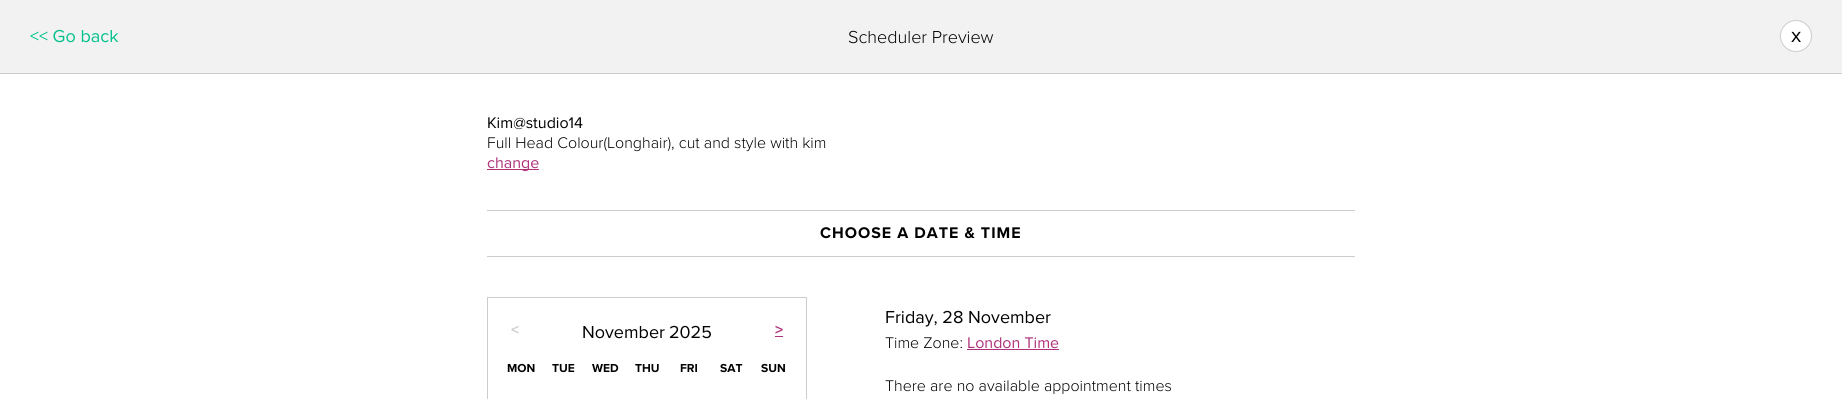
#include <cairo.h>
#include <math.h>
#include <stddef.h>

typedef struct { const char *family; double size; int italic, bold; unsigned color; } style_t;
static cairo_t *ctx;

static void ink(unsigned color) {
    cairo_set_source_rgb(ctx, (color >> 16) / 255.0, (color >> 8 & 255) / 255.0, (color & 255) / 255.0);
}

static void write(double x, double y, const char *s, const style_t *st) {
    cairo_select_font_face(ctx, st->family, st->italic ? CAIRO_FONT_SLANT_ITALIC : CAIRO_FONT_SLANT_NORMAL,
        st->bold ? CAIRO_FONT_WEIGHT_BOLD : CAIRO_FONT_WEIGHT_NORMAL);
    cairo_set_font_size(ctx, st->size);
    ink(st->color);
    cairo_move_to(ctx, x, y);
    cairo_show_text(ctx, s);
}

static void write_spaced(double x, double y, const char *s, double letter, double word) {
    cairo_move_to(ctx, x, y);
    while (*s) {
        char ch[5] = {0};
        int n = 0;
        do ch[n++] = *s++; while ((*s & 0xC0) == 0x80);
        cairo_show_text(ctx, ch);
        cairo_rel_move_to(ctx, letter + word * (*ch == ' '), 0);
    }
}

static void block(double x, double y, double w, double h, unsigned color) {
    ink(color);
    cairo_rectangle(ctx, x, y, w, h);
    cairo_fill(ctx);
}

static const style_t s1 = {"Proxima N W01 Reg", 18, 0, 0, 0x00c18c};
static const style_t s2 = {"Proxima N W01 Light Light", 18, 0, 0, 0x000000};
static const style_t s3 = {"Proxima N W01 Reg", 21, 0, 0, 0x000000};
static const style_t s4 = {"Proxima N W01 Reg", 16, 0, 0, 0x000000};
static const style_t s5 = {"Proxima N W01 Light Light", 16, 0, 0, 0x000000};
static const style_t s6 = {"Proxima N W01 Reg", 16, 0, 0, 0xae3279};
static const style_t s7 = {"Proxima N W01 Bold", 16, 0, 1, 0xcccccc};
static const style_t s8 = {"Proxima N W01 Reg", 18, 0, 0, 0x000000};
static const style_t s9 = {"Proxima N W01 Bold", 16, 0, 1, 0xae3279};
static const style_t s10 = {"Proxima N W01 Bold", 12, 0, 1, 0x000000};

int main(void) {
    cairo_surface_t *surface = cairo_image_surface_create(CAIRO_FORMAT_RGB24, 1842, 399);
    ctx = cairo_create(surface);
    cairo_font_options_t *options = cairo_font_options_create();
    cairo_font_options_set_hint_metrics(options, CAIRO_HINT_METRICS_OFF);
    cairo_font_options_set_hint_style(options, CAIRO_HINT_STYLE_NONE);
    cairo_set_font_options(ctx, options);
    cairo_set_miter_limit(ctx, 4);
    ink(0xffffff);
    cairo_paint(ctx);
    block(0, 0, 1842, 73, 0xf2f2f2);
    block(0, 73, 1842, 1, 0xcccccc);
    write(30, 42, "<< Go back", &s1);
    write(848, 43, "Scheduler Preview", &s2);
    ink(0xffffff);
    cairo_new_path(ctx);
    cairo_arc(ctx, 1796, 36, 15.5, 0, 2 * M_PI);
    cairo_fill_preserve(ctx);
    ink(0xcccccc);
    cairo_set_line_width(ctx, 1);
    cairo_stroke(ctx);
    write(1791, 42, "x", &s3);
    write(487, 128, "Kim@studio14", &s4);
    write(487, 148, "Full Head Colour(Longhair), cut and style with kim", &s5);
    block(487, 169, 52, 1, 0xae3279);
    write(487, 168, "change", &s6);
    block(487, 210, 868, 1, 0xcccccc);
    block(487, 256, 868, 1, 0xcccccc);
    cairo_select_font_face(ctx, "Proxima N W01 Bold", CAIRO_FONT_SLANT_NORMAL, CAIRO_FONT_WEIGHT_BOLD);
    ink(0x000000);
    write_spaced(820, 238, "CHOOSE A DATE & TIME", 1, 0);
    cairo_rectangle(ctx, 487.5, 297.5, 319, 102);
    ink(0xcccccc);
    cairo_stroke(ctx);
    write(511, 335, "<", &s7);
    write(582, 338, "November", &s8);
    write(669, 338, "2025", &s8);
    write(775, 335, ">", &s9);
    block(775, 336, 8, 1, 0xae3279);
    write(507, 372, "MON", &s10);
    write(552, 372, "TUE", &s10);
    write(592, 372, "WED", &s10);
    write(635, 372, "THU", &s10);
    write(680, 372, "FRI", &s10);
    write(720, 372, "SAT", &s10);
    write(761, 372, "SUN", &s10);
    write(885, 323, "Friday, 28 November", &s8);
    write(885, 348, "Time Zone:", &s5);
    write(967, 348, "London Time", &s6);
    block(967, 349, 92, 1, 0xae3279);
    write(885, 391, "There are no available appointment times", &s5);
    cairo_surface_write_to_png(surface, "screenshot.png");
    cairo_font_options_destroy(options);
    cairo_destroy(ctx);
    cairo_surface_destroy(surface);
    return 0;
}
